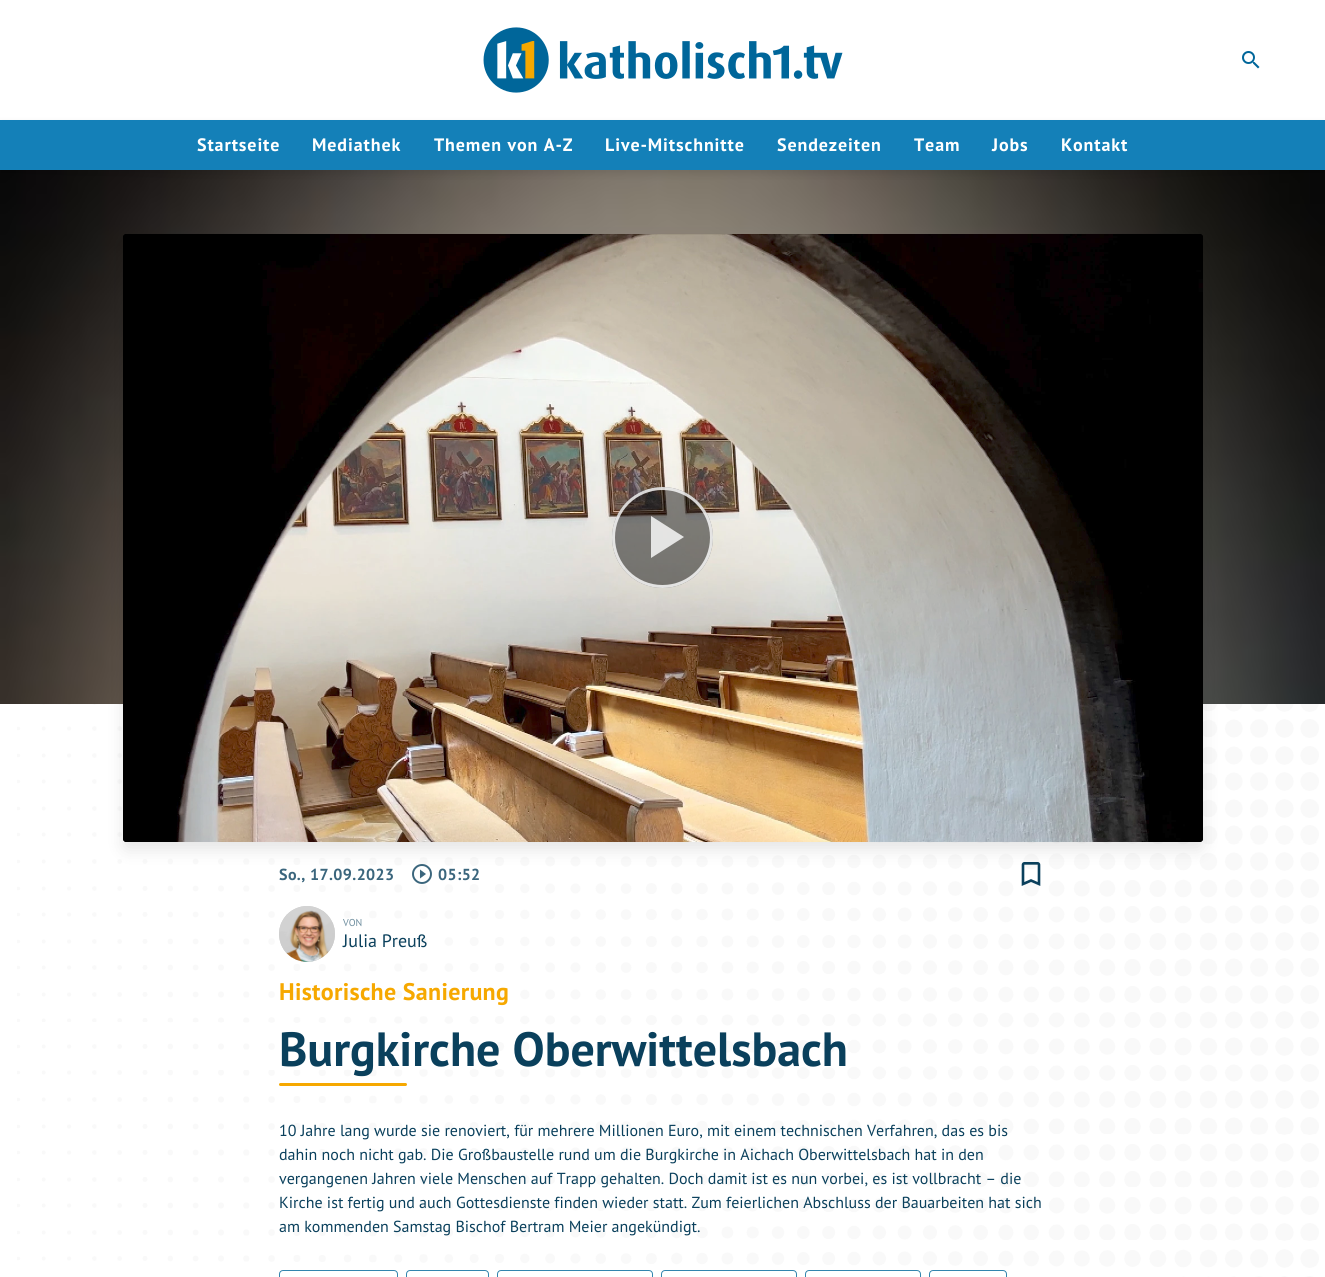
#include <cairo.h>
#include <math.h>
#include <stddef.h>

typedef struct { const char *family; double size; int italic, bold; unsigned color; } style_t;
static cairo_t *ctx;

static void ink(unsigned color) {
    cairo_set_source_rgb(ctx, (color >> 16) / 255.0, (color >> 8 & 255) / 255.0, (color & 255) / 255.0);
}

static void write(double x, double y, const char *s, const style_t *st) {
    cairo_select_font_face(ctx, st->family, st->italic ? CAIRO_FONT_SLANT_ITALIC : CAIRO_FONT_SLANT_NORMAL,
        st->bold ? CAIRO_FONT_WEIGHT_BOLD : CAIRO_FONT_WEIGHT_NORMAL);
    cairo_set_font_size(ctx, st->size);
    ink(st->color);
    cairo_move_to(ctx, x, y);
    cairo_show_text(ctx, s);
}

static void write_spaced(double x, double y, const char *s, double letter, double word) {
    cairo_move_to(ctx, x, y);
    while (*s) {
        char ch[5] = {0};
        int n = 0;
        do ch[n++] = *s++; while ((*s & 0xC0) == 0x80);
        cairo_show_text(ctx, ch);
        cairo_rel_move_to(ctx, letter + word * (*ch == ' '), 0);
    }
}

static void block(double x, double y, double w, double h, unsigned color) {
    ink(color);
    cairo_rectangle(ctx, x, y, w, h);
    cairo_fill(ctx);
}

static void round_path(double x, double y, double w, double h, double r) {
    cairo_new_sub_path(ctx);
    cairo_arc(ctx, x + w - r, y + h - r, r, 0, M_PI / 2);
    cairo_arc(ctx, x + r, y + h - r, r, M_PI / 2, M_PI);
    cairo_arc(ctx, x + r, y + r, r, M_PI, 1.5 * M_PI);
    cairo_arc(ctx, x + w - r, y + r, r, 1.5 * M_PI, 2 * M_PI);
    cairo_close_path(ctx);
}

static void blur_box(double x, double y, double w, double h, double r, double blur, double alpha) {
    cairo_push_group_with_content(ctx, CAIRO_CONTENT_ALPHA);
    cairo_set_operator(ctx, CAIRO_OPERATOR_SOURCE);
    for (int i = 15; i >= -15 && fmin(w, h) + blur * i / 3 > 0; i -= 2) {
        double e = blur * i / 6;
        cairo_set_source_rgba(ctx, 0, 0, 0, alpha * erfc((i - 1) / 8.5) / 2);
        round_path(x - e, y - e, w + 2 * e, h + 2 * e, fmax(0, fmin(r + e + blur * .6, fmin(w, h) / 2 + e)));
        cairo_fill(ctx);
    }
    cairo_pattern_t *soft = cairo_pop_group(ctx);
    cairo_mask(ctx, soft);
    cairo_pattern_destroy(soft);
}

static void paste(const char *path, double x, double y, double w, double h) {
    cairo_surface_t *image = cairo_image_surface_create_from_png(path);
    cairo_save(ctx);
    cairo_set_source_surface(ctx, image, x, y);
    cairo_rectangle(ctx, x, y, w, h);
    cairo_fill(ctx);
    cairo_restore(ctx);
    cairo_surface_destroy(image);
}

static const style_t s1 = {"PT Sans", 10, 0, 0, 0x6c8c9d};
static const style_t s2 = {"PT Sans", 18, 0, 0, 0x0a405c};
static const style_t s3 = {"PT Sans", 48, 0, 1, 0x0a405c};
static const style_t s4 = {"PT Sans", 16, 0, 0, 0x0a405c};

int main(void) {
    cairo_surface_t *surface = cairo_image_surface_create(CAIRO_FORMAT_RGB24, 1325, 1277);
    ctx = cairo_create(surface);
    cairo_font_options_t *options = cairo_font_options_create();
    cairo_font_options_set_hint_metrics(options, CAIRO_HINT_METRICS_OFF);
    cairo_font_options_set_hint_style(options, CAIRO_HINT_STYLE_NONE);
    cairo_set_font_options(ctx, options);
    cairo_set_miter_limit(ctx, 4);
    ink(0xffffff);
    cairo_paint(ctx);
    paste("pic1.png", 483, 27, 360, 66);
    paste("pic2.png", 1242, 51, 18, 18);
    paste("pic4.png", 0, 170, 1325, 534);
    ink(0x000000);
    blur_box(0, 124, 1325, 50, 0, 4, 0.1);
    block(0, 120, 1325, 50, 0x1480b8);
    cairo_select_font_face(ctx, "PT Sans", CAIRO_FONT_SLANT_NORMAL, CAIRO_FONT_WEIGHT_BOLD);
    cairo_set_font_size(ctx, 18);
    ink(0xffffff);
    write_spaced(197, 151, "Startseite", 0.9, 0);
    write_spaced(312, 151, "Mediathek", 0.9, 0);
    write_spaced(434, 151, "Themen von A-Z", 0.9, 0);
    write_spaced(605, 151, "Live-Mitschnitte", 0.9, 0);
    write_spaced(777, 151, "Sendezeiten", 0.9, 0);
    write_spaced(914, 151, "Team", 0.9, 0);
    write_spaced(992, 151, "Jobs", 0.9, 0);
    write_spaced(1061, 151, "Kontakt", 0.9, 0);
    paste("pic3.png", 17, 704, 1302, 138);
    paste("pic8.png", 17, 842, 1302, 64);
    paste("pic9.png", 412, 864, 20, 20);
    paste("pic10.png", 1021, 862, 20, 24);
    ink(0x000000);
    blur_box(123, 242, 1080, 608, 4, 8, 0.1);
    paste("pic5.png", 123, 234, 1080, 608);
    paste("pic6.png", 123, 234, 1080, 608);
    paste("pic7.png", 123, 234, 1080, 608);
    cairo_set_source_rgba(ctx, 0, 0, 0, 0.48);
    cairo_arc(ctx, 662.5, 537.5, 50.5, 0, 2 * M_PI);
    cairo_fill(ctx);
    cairo_arc(ctx, 662.5, 537.5, 49, 0, 2 * M_PI);
    cairo_set_source_rgba(ctx, 1, 1, 1, 0.8);
    cairo_set_line_width(ctx, 3);
    cairo_stroke(ctx);
    cairo_new_path(ctx);
    cairo_move_to(ctx, 651, 516);
    cairo_line_to(ctx, 651, 558);
    cairo_line_to(ctx, 684, 537);
    cairo_close_path(ctx);
    cairo_fill(ctx);
    cairo_set_font_size(ctx, 16);
    ink(0x3b667d);
    write_spaced(279, 880, "So., 17.09.2023", 0.4, 0);
    write_spaced(438, 880, "05:52", 0.4, 0);
    paste("pic11.png", 17, 906, 1302, 71);
    cairo_set_source_rgba(ctx, 0, 0, 0, 0.1);
    cairo_arc(ctx, 307, 934, 28, 0, 2 * M_PI);
    cairo_fill(ctx);
    cairo_arc(ctx, 307, 934, 28, 0, 2 * M_PI);
    cairo_fill(ctx);
    paste("pic12.png", 279, 906, 56, 56);
    write(343, 926, "VON", &s1);
    write(343, 947, "Julia Preuß", &s2);
    paste("pic13.png", 17, 985, 1302, 37);
    cairo_select_font_face(ctx, "PT Sans", CAIRO_FONT_SLANT_NORMAL, CAIRO_FONT_WEIGHT_BOLD);
    cairo_set_font_size(ctx, 24);
    ink(0xf6a800);
    write_spaced(279, 1000, "Historische Sanierung", 0.3, 0);
    paste("pic14.png", 17, 1022, 1302, 80);
    write(279, 1066, "Burgkirche Oberwittelsbach", &s3);
    ink(0xf6a800);
    round_path(279, 1083, 128, 3, 1.5);
    cairo_fill(ctx);
    paste("pic15.png", 17, 1102, 1302, 152);
    write(279, 1136, "10 Jahre lang wurde sie renoviert, für mehrere Millionen Euro, mit einem technischen Verfahren, das es bis", &s4);
    write(279, 1160, "dahin noch nicht gab. Die Großbaustelle rund um die Burgkirche in Aichach Oberwittelsbach hat in den", &s4);
    write(279, 1184, "vergangenen Jahren viele Menschen auf Trapp gehalten. Doch damit ist es nun vorbei, es ist vollbracht – die", &s4);
    write(279, 1208, "Kirche ist fertig und auch Gottesdienste finden wieder statt. Zum feierlichen Abschluss der Bauarbeiten hat sich", &s4);
    write(279, 1232, "am kommenden Samstag Bischof Bertram Meier angekündigt.", &s4);
    paste("pic16.png", 17, 1254, 1302, 23);
    round_path(279.5, 1270.5, 118, 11, 3.5);
    ink(0x3385ae);
    cairo_set_line_width(ctx, 1);
    cairo_stroke(ctx);
    round_path(406.5, 1270.5, 82, 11, 3.5);
    cairo_stroke(ctx);
    round_path(497.5, 1270.5, 155, 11, 3.5);
    cairo_stroke(ctx);
    round_path(661.5, 1270.5, 135, 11, 3.5);
    cairo_stroke(ctx);
    round_path(805.5, 1270.5, 115, 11, 3.5);
    cairo_stroke(ctx);
    round_path(929.5, 1270.5, 77, 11, 3.5);
    cairo_stroke(ctx);
    cairo_surface_write_to_png(surface, "screenshot.png");
    cairo_font_options_destroy(options);
    cairo_destroy(ctx);
    cairo_surface_destroy(surface);
    return 0;
}
